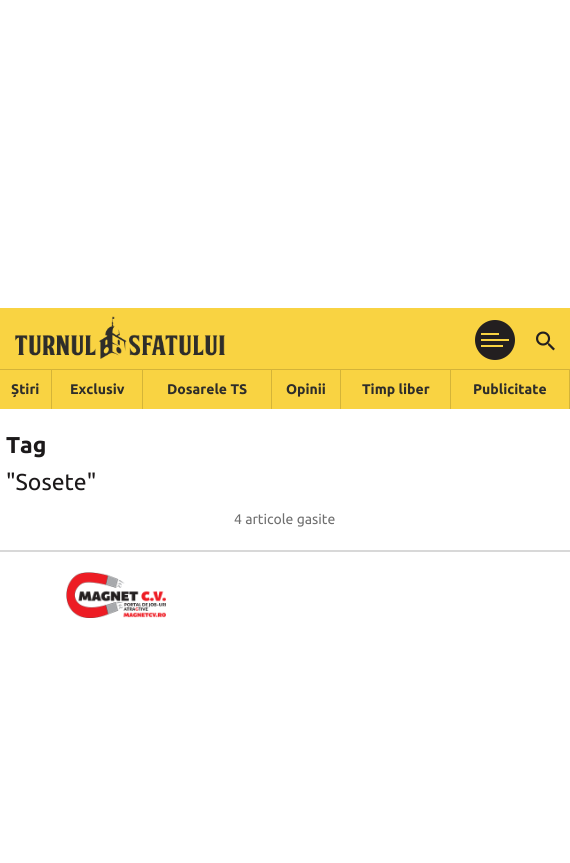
#include <cairo.h>
#include <math.h>
#include <stddef.h>

typedef struct { const char *family; double size; int italic, bold; unsigned color; } style_t;
static cairo_t *ctx;

static void ink(unsigned color) {
    cairo_set_source_rgb(ctx, (color >> 16) / 255.0, (color >> 8 & 255) / 255.0, (color & 255) / 255.0);
}

static void write(double x, double y, const char *s, const style_t *st) {
    cairo_select_font_face(ctx, st->family, st->italic ? CAIRO_FONT_SLANT_ITALIC : CAIRO_FONT_SLANT_NORMAL,
        st->bold ? CAIRO_FONT_WEIGHT_BOLD : CAIRO_FONT_WEIGHT_NORMAL);
    cairo_set_font_size(ctx, st->size);
    ink(st->color);
    cairo_move_to(ctx, x, y);
    cairo_show_text(ctx, s);
}

static void block(double x, double y, double w, double h, unsigned color) {
    ink(color);
    cairo_rectangle(ctx, x, y, w, h);
    cairo_fill(ctx);
}

static void paste(const char *path, double x, double y, double w, double h) {
    cairo_surface_t *image = cairo_image_surface_create_from_png(path);
    cairo_save(ctx);
    cairo_set_source_surface(ctx, image, x, y);
    cairo_rectangle(ctx, x, y, w, h);
    cairo_fill(ctx);
    cairo_restore(ctx);
    cairo_surface_destroy(image);
}

static const style_t s1 = {"Ubuntu", 14, 0, 1, 0x2e2d2a};
static const style_t s2 = {"Ubuntu", 23, 0, 1, 0x1c191a};
static const style_t s3 = {"Ubuntu", 23, 0, 0, 0x1c191a};
static const style_t s4 = {"Ubuntu", 14, 0, 0, 0x6f6f6f};

int main(void) {
    cairo_surface_t *surface = cairo_image_surface_create(CAIRO_FORMAT_RGB24, 570, 863);
    ctx = cairo_create(surface);
    cairo_font_options_t *options = cairo_font_options_create();
    cairo_font_options_set_hint_metrics(options, CAIRO_HINT_METRICS_OFF);
    cairo_font_options_set_hint_style(options, CAIRO_HINT_STYLE_NONE);
    cairo_set_font_options(ctx, options);
    cairo_set_miter_limit(ctx, 4);
    ink(0xffffff);
    cairo_paint(ctx);
    block(0, 308, 570, 101, 0xf9d342);
    paste("pic1.png", 15, 316, 210, 43);
    ink(0x231f20);
    cairo_arc(ctx, 495, 340, 20, 0, 2 * M_PI);
    cairo_fill(ctx);
    block(481, 339, 28, 2, 0xf9d342);
    block(481, 333, 18, 2, 0xf9d342);
    block(481, 345, 22, 2, 0xf9d342);
    paste("pic2.png", 536, 331, 19, 20);
    ink(0xd4b338);
    cairo_new_path(ctx);
    cairo_move_to(ctx, 0, 369);
    cairo_line_to(ctx, 52, 369);
    cairo_line_to(ctx, 51, 370);
    cairo_line_to(ctx, 0, 370);
    cairo_close_path(ctx);
    cairo_fill(ctx);
    cairo_set_source_rgba(ctx, 0, 0, 0, 0.15);
    cairo_new_path(ctx);
    cairo_move_to(ctx, 52, 369);
    cairo_line_to(ctx, 52, 409);
    cairo_line_to(ctx, 51, 409);
    cairo_line_to(ctx, 51, 370);
    cairo_close_path(ctx);
    cairo_fill(ctx);
    write(11, 394, "Știri", &s1);
    ink(0xd4b338);
    cairo_new_path(ctx);
    cairo_move_to(ctx, 52, 369);
    cairo_line_to(ctx, 143, 369);
    cairo_line_to(ctx, 142, 370);
    cairo_line_to(ctx, 52, 370);
    cairo_close_path(ctx);
    cairo_fill(ctx);
    cairo_set_source_rgba(ctx, 0, 0, 0, 0.15);
    cairo_new_path(ctx);
    cairo_move_to(ctx, 143, 369);
    cairo_line_to(ctx, 143, 409);
    cairo_line_to(ctx, 142, 409);
    cairo_line_to(ctx, 142, 370);
    cairo_close_path(ctx);
    cairo_fill(ctx);
    write(70, 394, "Exclusiv", &s1);
    ink(0xd4b338);
    cairo_new_path(ctx);
    cairo_move_to(ctx, 143, 369);
    cairo_line_to(ctx, 272, 369);
    cairo_line_to(ctx, 271, 370);
    cairo_line_to(ctx, 143, 370);
    cairo_close_path(ctx);
    cairo_fill(ctx);
    cairo_set_source_rgba(ctx, 0, 0, 0, 0.15);
    cairo_new_path(ctx);
    cairo_move_to(ctx, 272, 369);
    cairo_line_to(ctx, 272, 409);
    cairo_line_to(ctx, 271, 409);
    cairo_line_to(ctx, 271, 370);
    cairo_close_path(ctx);
    cairo_fill(ctx);
    write(167, 394, "Dosarele TS", &s1);
    ink(0xd4b338);
    cairo_new_path(ctx);
    cairo_move_to(ctx, 272, 369);
    cairo_line_to(ctx, 341, 369);
    cairo_line_to(ctx, 340, 370);
    cairo_line_to(ctx, 272, 370);
    cairo_close_path(ctx);
    cairo_fill(ctx);
    cairo_set_source_rgba(ctx, 0, 0, 0, 0.15);
    cairo_new_path(ctx);
    cairo_move_to(ctx, 341, 369);
    cairo_line_to(ctx, 341, 409);
    cairo_line_to(ctx, 340, 409);
    cairo_line_to(ctx, 340, 370);
    cairo_close_path(ctx);
    cairo_fill(ctx);
    write(286, 394, "Opinii", &s1);
    ink(0xd4b338);
    cairo_new_path(ctx);
    cairo_move_to(ctx, 341, 369);
    cairo_line_to(ctx, 451, 369);
    cairo_line_to(ctx, 450, 370);
    cairo_line_to(ctx, 341, 370);
    cairo_close_path(ctx);
    cairo_fill(ctx);
    cairo_set_source_rgba(ctx, 0, 0, 0, 0.15);
    cairo_new_path(ctx);
    cairo_move_to(ctx, 451, 369);
    cairo_line_to(ctx, 451, 409);
    cairo_line_to(ctx, 450, 409);
    cairo_line_to(ctx, 450, 370);
    cairo_close_path(ctx);
    cairo_fill(ctx);
    write(362, 394, "Timp liber", &s1);
    ink(0xd4b338);
    cairo_new_path(ctx);
    cairo_move_to(ctx, 451, 369);
    cairo_line_to(ctx, 570, 369);
    cairo_line_to(ctx, 569, 370);
    cairo_line_to(ctx, 451, 370);
    cairo_close_path(ctx);
    cairo_fill(ctx);
    cairo_set_source_rgba(ctx, 0, 0, 0, 0.15);
    cairo_new_path(ctx);
    cairo_move_to(ctx, 570, 369);
    cairo_line_to(ctx, 570, 409);
    cairo_line_to(ctx, 569, 409);
    cairo_line_to(ctx, 569, 370);
    cairo_close_path(ctx);
    cairo_fill(ctx);
    write(473, 394, "Publicitate", &s1);
    write(6, 453, "Tag", &s2);
    write(6, 490, "\"Sosete\"", &s3);
    write(234, 524, "4 articole gasite", &s4);
    block(0, 550, 570, 2, 0xd8d8d8);
    paste("pic3.png", 66, 572, 100, 46);
    cairo_surface_write_to_png(surface, "screenshot.png");
    cairo_font_options_destroy(options);
    cairo_destroy(ctx);
    cairo_surface_destroy(surface);
    return 0;
}
